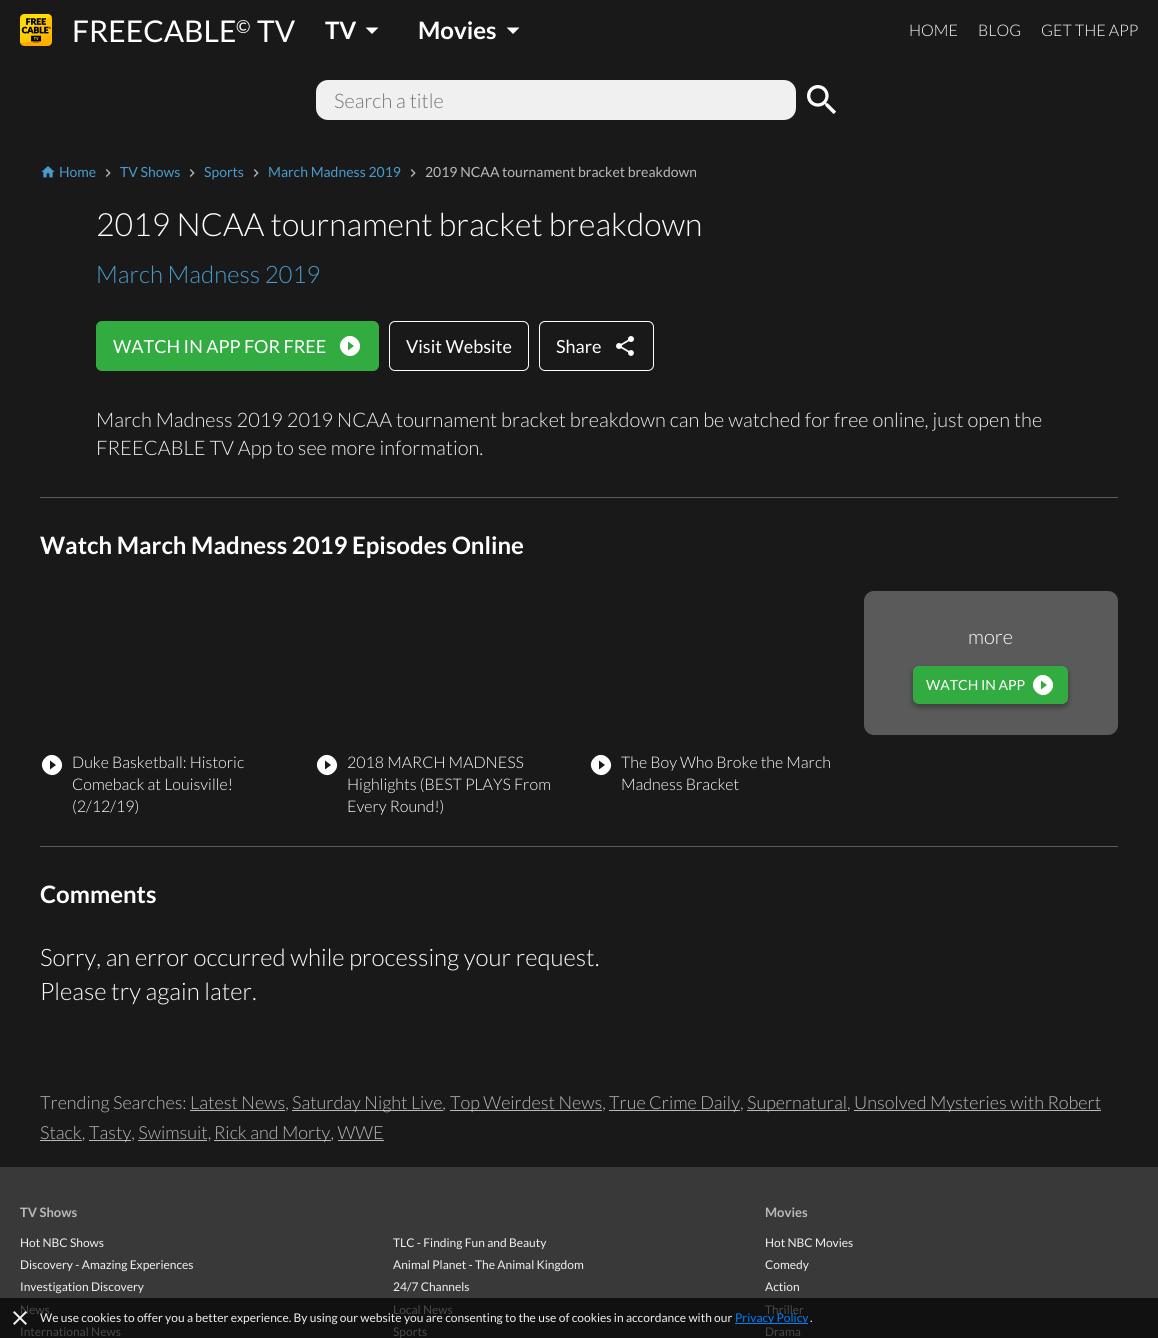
#include <cairo.h>
#include <math.h>
#include <stddef.h>

typedef struct { const char *family; double size; int italic, bold; unsigned color; } style_t;
static cairo_t *ctx;

static void ink(unsigned color) {
    cairo_set_source_rgb(ctx, (color >> 16) / 255.0, (color >> 8 & 255) / 255.0, (color & 255) / 255.0);
}

static void write(double x, double y, const char *s, const style_t *st) {
    cairo_select_font_face(ctx, st->family, st->italic ? CAIRO_FONT_SLANT_ITALIC : CAIRO_FONT_SLANT_NORMAL,
        st->bold ? CAIRO_FONT_WEIGHT_BOLD : CAIRO_FONT_WEIGHT_NORMAL);
    cairo_set_font_size(ctx, st->size);
    ink(st->color);
    cairo_move_to(ctx, x, y);
    cairo_show_text(ctx, s);
}

static void block(double x, double y, double w, double h, unsigned color) {
    ink(color);
    cairo_rectangle(ctx, x, y, w, h);
    cairo_fill(ctx);
}

static void round_path(double x, double y, double w, double h, double r) {
    cairo_new_sub_path(ctx);
    cairo_arc(ctx, x + w - r, y + h - r, r, 0, M_PI / 2);
    cairo_arc(ctx, x + r, y + h - r, r, M_PI / 2, M_PI);
    cairo_arc(ctx, x + r, y + r, r, M_PI, 1.5 * M_PI);
    cairo_arc(ctx, x + w - r, y + r, r, 1.5 * M_PI, 2 * M_PI);
    cairo_close_path(ctx);
}

static void blur_box(double x, double y, double w, double h, double r, double blur, double alpha) {
    cairo_push_group_with_content(ctx, CAIRO_CONTENT_ALPHA);
    cairo_set_operator(ctx, CAIRO_OPERATOR_SOURCE);
    for (int i = 15; i >= -15 && fmin(w, h) + blur * i / 3 > 0; i -= 2) {
        double e = blur * i / 6;
        cairo_set_source_rgba(ctx, 0, 0, 0, alpha * erfc((i - 1) / 8.5) / 2);
        round_path(x - e, y - e, w + 2 * e, h + 2 * e, fmax(0, fmin(r + e + blur * .6, fmin(w, h) / 2 + e)));
        cairo_fill(ctx);
    }
    cairo_pattern_t *soft = cairo_pop_group(ctx);
    cairo_mask(ctx, soft);
    cairo_pattern_destroy(soft);
}

static void paste(const char *path, double x, double y, double w, double h) {
    cairo_surface_t *image = cairo_image_surface_create_from_png(path);
    cairo_save(ctx);
    cairo_set_source_surface(ctx, image, x, y);
    cairo_rectangle(ctx, x, y, w, h);
    cairo_fill(ctx);
    cairo_restore(ctx);
    cairo_surface_destroy(image);
}

static const style_t s1 = {"Lato", 30, 0, 0, 0xffffff};
static const style_t s2 = {"Lato", 18, 0, 0, 0xffffff};
static const style_t s3 = {"Lato", 24, 0, 1, 0xffffff};
static const style_t s4 = {"Lato Light", 16, 0, 0, 0xffffff};
static const style_t s5 = {"Lato Light", 20, 0, 0, 0x757575};
static const style_t s6 = {"Lato", 14, 0, 0, 0x499bcb};
static const style_t s7 = {"Lato", 14, 0, 0, 0xb7babc};
static const style_t s8 = {"Lato Light", 32, 0, 0, 0xffffff};
static const style_t s9 = {"Lato Light", 24, 0, 0, 0x499bcb};
static const style_t s10 = {"Lato Light", 20, 0, 0, 0xf0f0f0};
static const style_t s11 = {"Lato Light", 20, 0, 0, 0xffffff};
static const style_t s12 = {"Lato", 14, 0, 0, 0xffffff};
static const style_t s13 = {"Lato Light", 24, 0, 0, 0xffffff};
static const style_t s14 = {"Lato Light", 18, 0, 0, 0xb7babc};
static const style_t s15 = {"Lato", 13, 0, 1, 0xb7babc};
static const style_t s16 = {"Lato", 12, 0, 0, 0xf0f0f0};
static const style_t s17 = {"Lato", 12, 0, 0, 0x484848};
static const style_t s18 = {"Lato", 12, 0, 0, 0x007ffb};

int main(void) {
    cairo_surface_t *surface = cairo_image_surface_create(CAIRO_FORMAT_RGB24, 1158, 1338);
    ctx = cairo_create(surface);
    cairo_font_options_t *options = cairo_font_options_create();
    cairo_font_options_set_hint_metrics(options, CAIRO_HINT_METRICS_OFF);
    cairo_font_options_set_hint_style(options, CAIRO_HINT_STYLE_NONE);
    cairo_set_font_options(ctx, options);
    cairo_set_miter_limit(ctx, 4);
    ink(0x191919);
    cairo_paint(ctx);
    paste("pic1.png", 20, 14, 32, 32);
    write(72, 42, "FREECABLE", &s1);
    write(236, 33, "©", &s2);
    write(257, 42, "TV", &s1);
    write(325, 39, "TV", &s3);
    cairo_new_path(ctx);
    cairo_move_to(ctx, 365.5, 27.5);
    cairo_line_to(ctx, 378.5, 27.5);
    cairo_line_to(ctx, 372, 34);
    cairo_close_path(ctx);
    cairo_fill(ctx);
    write(418, 39, "Movies", &s3);
    cairo_new_path(ctx);
    cairo_move_to(ctx, 506.5, 27.5);
    cairo_line_to(ctx, 519.5, 27.5);
    cairo_line_to(ctx, 513, 34);
    cairo_close_path(ctx);
    cairo_fill(ctx);
    write(909, 36, "HOME", &s4);
    write(978, 36, "BLOG", &s4);
    write(1041, 36, "GET THE APP", &s4);
    ink(0xf0f0f0);
    round_path(316, 80, 480, 40, 12);
    cairo_fill(ctx);
    write(334, 108, "Search a title", &s5);
    paste("pic2.png", 807, 85, 29, 29);
    paste("pic3.png", 41, 166, 14, 12);
    write(59, 177, "Home", &s6);
    paste("pic4.png", 105, 169, 6, 8);
    write(120, 177, "TV Shows", &s6);
    paste("pic4.png", 189, 169, 6, 8);
    write(204, 177, "Sports", &s6);
    paste("pic4.png", 253, 169, 6, 8);
    write(268, 177, "March Madness 2019", &s6);
    paste("pic4.png", 410, 169, 6, 8);
    write(425, 177, "2019 NCAA tournament bracket breakdown", &s7);
    write(96, 236, "2019 NCAA tournament bracket breakdown", &s8);
    write(96, 283, "March Madness 2019", &s9);
    ink(0x32ac41);
    round_path(96.5, 321.5, 282, 49, 5.5);
    cairo_fill_preserve(ctx);
    cairo_set_line_width(ctx, 1);
    cairo_stroke(ctx);
    write(113, 353, "WATCH IN APP FOR FREE", &s2);
    cairo_new_path(ctx);
    cairo_move_to(ctx, 348, 350.5);
    cairo_line_to(ctx, 354, 346);
    cairo_line_to(ctx, 348, 341.5);
    cairo_close_path(ctx);
    cairo_move_to(ctx, 343, 339);
    cairo_curve_to(ctx, 352, 329.5, 366.5, 344, 357, 353);
    cairo_curve_to(ctx, 348, 362.5, 333.5, 348, 343, 339);
    cairo_close_path(ctx);
    cairo_fill(ctx);
    round_path(389.5, 321.5, 139, 49, 5.5);
    cairo_stroke(ctx);
    write(406, 353, "Visit Website", &s2);
    round_path(539.5, 321.5, 114, 49, 5.5);
    cairo_stroke(ctx);
    write(556, 353, "Share", &s2);
    paste("pic5.png", 616, 336, 18, 20);
    write(96, 427, "March Madness 2019 2019 NCAA tournament bracket breakdown can be watched for free online, just open the", &s10);
    write(96, 455, "FREECABLE TV App to see more information.", &s10);
    block(40, 497, 1078, 1, 0x5a5a5a);
    write(40, 554, "Watch March Madness 2019 Episodes Online", &s3);
    ink(0x5a5a5a);
    round_path(864, 591, 254, 144, 10);
    cairo_fill(ctx);
    write(968, 644, "more", &s11);
    ink(0x000000);
    blur_box(913, 669, 155, 38, 6, 3, 0.23);
    blur_box(913, 669, 155, 38, 6, 3, 0.16);
    ink(0x32ac41);
    round_path(913.5, 666.5, 154, 37, 5.5);
    cairo_fill_preserve(ctx);
    cairo_stroke(ctx);
    write(926, 690, "WATCH IN APP", &s12);
    cairo_new_path(ctx);
    cairo_move_to(ctx, 1041, 689.5);
    cairo_line_to(ctx, 1047, 685);
    cairo_line_to(ctx, 1041, 680.5);
    cairo_close_path(ctx);
    cairo_move_to(ctx, 1036, 678);
    cairo_curve_to(ctx, 1045, 668.5, 1059.5, 683, 1050, 692);
    cairo_curve_to(ctx, 1041, 701.5, 1026.5, 687, 1036, 678);
    cairo_close_path(ctx);
    cairo_fill(ctx);
    cairo_new_path(ctx);
    cairo_move_to(ctx, 50, 769.5);
    cairo_line_to(ctx, 56, 765);
    cairo_line_to(ctx, 50, 760.5);
    cairo_close_path(ctx);
    cairo_move_to(ctx, 45, 758);
    cairo_curve_to(ctx, 54, 748.5, 68.5, 763, 59, 772);
    cairo_curve_to(ctx, 50, 781.5, 35.5, 767, 45, 758);
    cairo_close_path(ctx);
    cairo_fill(ctx);
    write(72, 768, "Duke Basketball: Historic", &s4);
    write(72, 790, "Comeback at Louisville!", &s4);
    write(72, 812, "(2/12/19)", &s4);
    cairo_new_path(ctx);
    cairo_move_to(ctx, 325, 769.5);
    cairo_line_to(ctx, 331, 765);
    cairo_line_to(ctx, 325, 760.5);
    cairo_close_path(ctx);
    cairo_move_to(ctx, 320, 758);
    cairo_curve_to(ctx, 329, 748.5, 343.5, 763, 334, 772);
    cairo_curve_to(ctx, 325, 781.5, 310.5, 767, 320, 758);
    cairo_close_path(ctx);
    cairo_fill(ctx);
    write(347, 768, "2018 MARCH MADNESS", &s4);
    write(347, 790, "Highlights (BEST PLAYS From", &s4);
    write(347, 812, "Every Round!)", &s4);
    cairo_new_path(ctx);
    cairo_move_to(ctx, 599, 769.5);
    cairo_line_to(ctx, 605, 765);
    cairo_line_to(ctx, 599, 760.5);
    cairo_close_path(ctx);
    cairo_move_to(ctx, 594, 758);
    cairo_curve_to(ctx, 603, 748.5, 617.5, 763, 608, 772);
    cairo_curve_to(ctx, 599, 781.5, 584.5, 767, 594, 758);
    cairo_close_path(ctx);
    cairo_fill(ctx);
    write(621, 768, "The Boy Who Broke the March", &s4);
    write(621, 790, "Madness Bracket", &s4);
    block(40, 846, 1078, 1, 0x5a5a5a);
    write(40, 903, "Comments", &s3);
    write(40, 966, "Sorry, an error occurred while processing your request.", &s13);
    write(40, 1000, "Please try again later.", &s13);
    write(40, 1109, "Trending Searches: Latest News,", &s14);
    block(292, 1110, 151, 1, 0xb7babc);
    write(292, 1109, "Saturday Night Live,", &s14);
    block(450, 1110, 152, 1, 0xb7babc);
    write(450, 1109, "Top Weirdest News,", &s14);
    block(609, 1110, 131, 1, 0xb7babc);
    write(609, 1109, "True Crime Daily,", &s14);
    block(747, 1110, 100, 1, 0xb7babc);
    write(747, 1109, "Supernatural,", &s14);
    block(854, 1110, 247, 1, 0xb7babc);
    write(854, 1109, "Unsolved Mysteries with Robert", &s14);
    block(190, 1110, 95, 1, 0xb7babc);
    block(40, 1140, 42, 1, 0xb7babc);
    write(40, 1139, "Stack,", &s14);
    block(89, 1140, 42, 1, 0xb7babc);
    write(89, 1139, "Tasty, Swimsuit,", &s14);
    block(214, 1140, 117, 1, 0xb7babc);
    write(214, 1139, "Rick and Morty, WWE", &s14);
    block(138, 1140, 69, 1, 0xb7babc);
    block(338, 1140, 46, 1, 0xb7babc);
    block(0, 1167, 1158, 131, 0x393939);
    block(0, 1298, 1158, 40, 0x111111);
    write(20, 1217, "TV Shows", &s15);
    write(20, 1247, "Hot NBC Shows", &s16);
    write(393, 1247, "TLC - Finding Fun and Beauty", &s16);
    write(20, 1269, "Discovery - Amazing Experiences", &s16);
    write(393, 1269, "Animal Planet - The Animal Kingdom", &s16);
    write(20, 1291, "Investigation Discovery", &s16);
    write(393, 1291, "24/7 Channels", &s16);
    write(20, 1314, "News", &s17);
    write(393, 1314, "Local News", &s17);
    write(20, 1336, "International News", &s17);
    write(393, 1336, "Sports", &s17);
    write(765, 1217, "Movies", &s15);
    write(765, 1247, "Hot NBC Movies", &s16);
    write(765, 1269, "Comedy", &s16);
    write(765, 1291, "Action", &s16);
    write(765, 1314, "Thriller", &s17);
    write(765, 1336, "Drama", &s17);
    paste("pic6.png", 13, 1311, 14, 14);
    write(40, 1322, "We use cookies to offer you a better experience. By using our website you are consenting to the use of cookies in accordance with our", &s16);
    block(735, 1323, 73, 1, 0x007ffb);
    write(735, 1322, "Privacy Policy", &s18);
    write(810, 1322, ".", &s16);
    cairo_surface_write_to_png(surface, "screenshot.png");
    cairo_font_options_destroy(options);
    cairo_destroy(ctx);
    cairo_surface_destroy(surface);
    return 0;
}
